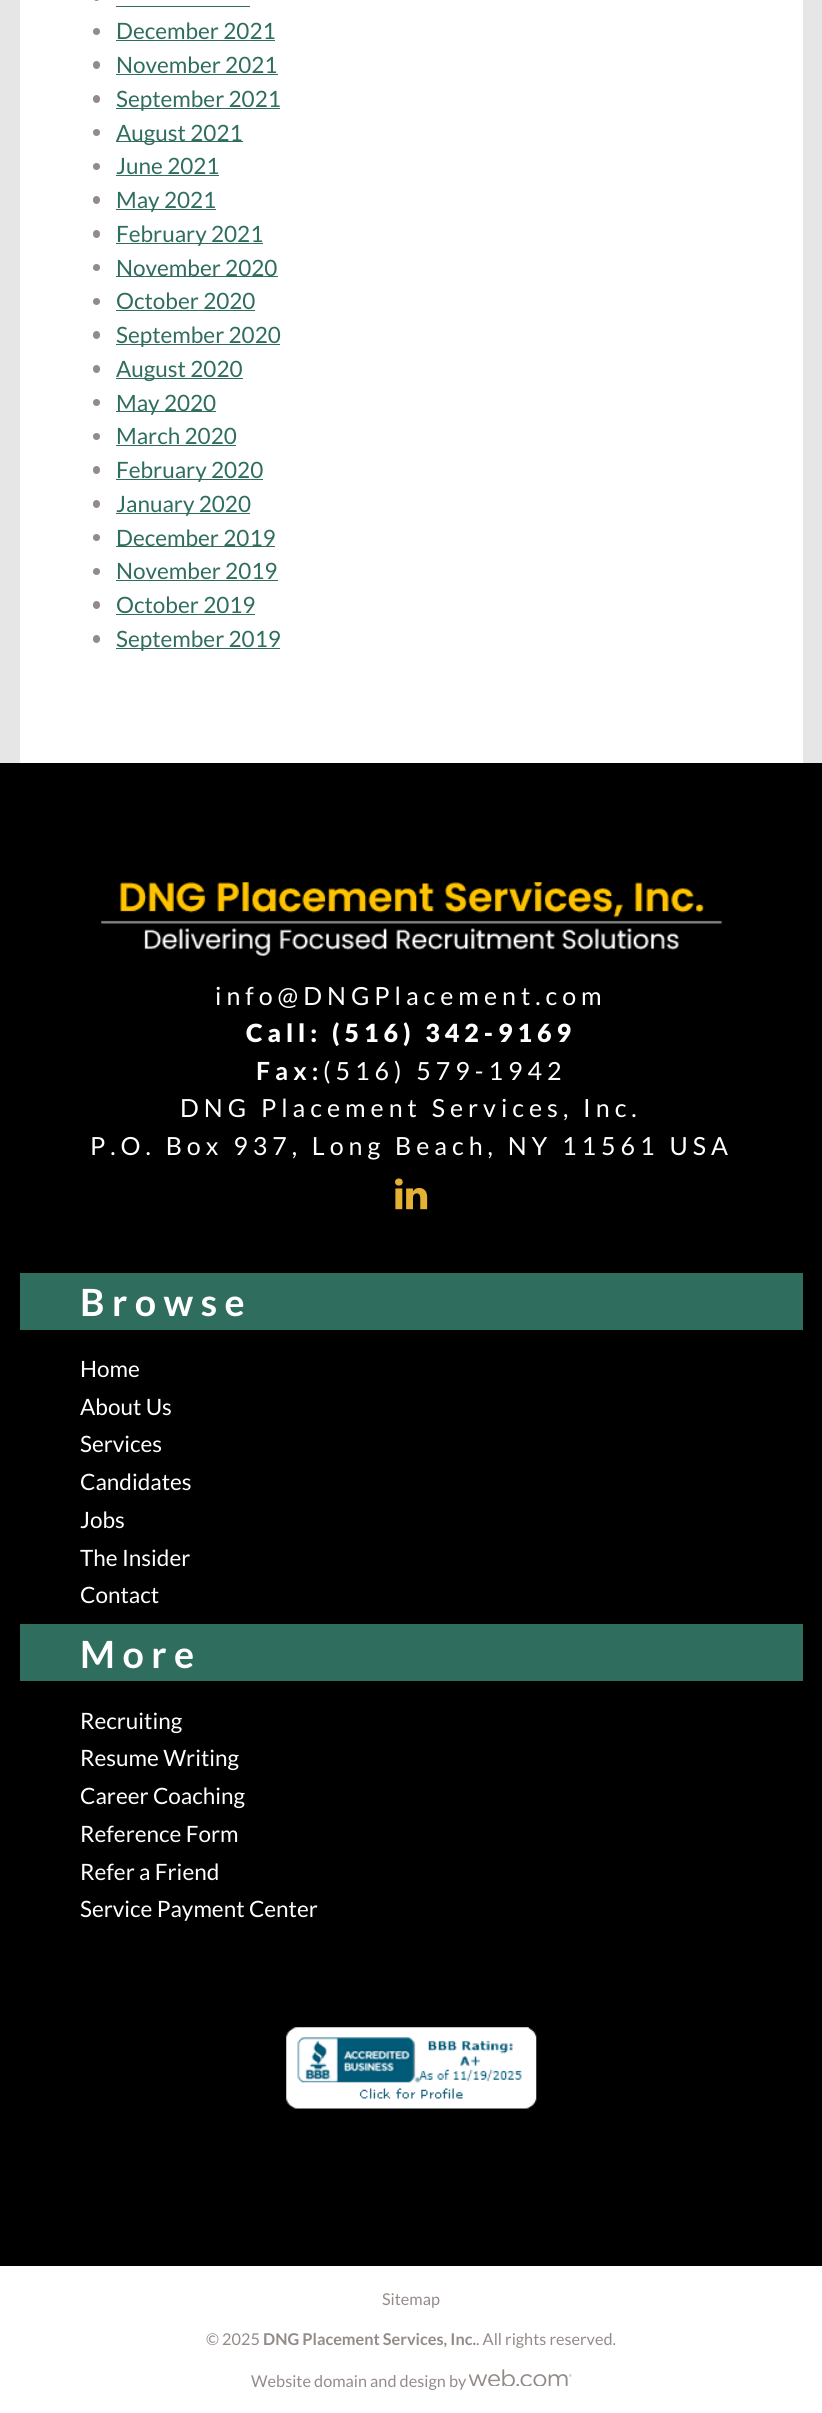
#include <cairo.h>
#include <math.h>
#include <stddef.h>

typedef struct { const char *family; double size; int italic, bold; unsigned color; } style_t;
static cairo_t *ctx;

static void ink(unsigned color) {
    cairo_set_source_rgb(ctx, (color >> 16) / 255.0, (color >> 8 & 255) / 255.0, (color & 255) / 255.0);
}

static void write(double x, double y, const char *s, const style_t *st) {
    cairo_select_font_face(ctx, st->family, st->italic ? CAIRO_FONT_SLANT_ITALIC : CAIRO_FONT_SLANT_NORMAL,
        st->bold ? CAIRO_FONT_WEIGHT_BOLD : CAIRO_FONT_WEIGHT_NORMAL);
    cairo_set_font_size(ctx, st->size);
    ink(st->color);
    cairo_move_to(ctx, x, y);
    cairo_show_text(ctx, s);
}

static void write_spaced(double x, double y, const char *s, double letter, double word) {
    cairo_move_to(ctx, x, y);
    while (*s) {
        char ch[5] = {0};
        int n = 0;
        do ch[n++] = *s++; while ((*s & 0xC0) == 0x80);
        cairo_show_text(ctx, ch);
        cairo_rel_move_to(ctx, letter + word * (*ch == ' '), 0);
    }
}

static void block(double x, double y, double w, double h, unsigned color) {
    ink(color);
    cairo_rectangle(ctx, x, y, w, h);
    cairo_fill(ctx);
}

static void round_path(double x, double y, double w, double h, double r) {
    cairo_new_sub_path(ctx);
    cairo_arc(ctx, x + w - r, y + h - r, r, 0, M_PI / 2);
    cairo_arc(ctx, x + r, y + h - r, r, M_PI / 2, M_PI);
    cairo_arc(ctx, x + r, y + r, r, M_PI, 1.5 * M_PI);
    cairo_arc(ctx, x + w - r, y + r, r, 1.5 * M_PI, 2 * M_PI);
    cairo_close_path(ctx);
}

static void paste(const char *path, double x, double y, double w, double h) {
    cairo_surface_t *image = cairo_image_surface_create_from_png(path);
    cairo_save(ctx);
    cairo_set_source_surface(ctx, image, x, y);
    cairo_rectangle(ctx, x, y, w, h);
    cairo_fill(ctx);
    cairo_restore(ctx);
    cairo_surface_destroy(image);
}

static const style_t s1 = {"Lato", 22.5, 0, 0, 0x2f6d5e};
static const style_t s2 = {"Lato", 22.5, 0, 0, 0xffffff};
static const style_t s3 = {"Lato", 16.25, 0, 0, 0x948b89};
static const style_t s4 = {"Lato", 16.25, 0, 1, 0x948b89};

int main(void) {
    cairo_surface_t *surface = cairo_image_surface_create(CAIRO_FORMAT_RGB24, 822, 2413);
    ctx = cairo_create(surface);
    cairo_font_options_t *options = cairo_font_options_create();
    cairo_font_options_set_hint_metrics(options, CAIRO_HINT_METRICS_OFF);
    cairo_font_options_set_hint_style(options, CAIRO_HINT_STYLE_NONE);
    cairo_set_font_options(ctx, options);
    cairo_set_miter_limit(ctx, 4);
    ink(0xe6e6e6);
    cairo_paint(ctx);
    block(20, 0, 783, 763, 0xffffff);
    ink(0x948b89);
    round_path(93, -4, 7, 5, 3.5);
    cairo_fill(ctx);
    block(116, 6, 134, 1, 0x2f6d5e);
    ink(0x948b89);
    cairo_arc(ctx, 96.5, 31.5, 3.5, 0, 2 * M_PI);
    cairo_fill(ctx);
    write(116, 39, "December 2021", &s1);
    block(116, 40, 159, 1, 0x2f6d5e);
    ink(0x948b89);
    round_path(93, 61, 7, 8, 3.5);
    cairo_fill(ctx);
    write(116, 73, "November 2021", &s1);
    block(116, 74, 162, 1, 0x2f6d5e);
    ink(0x948b89);
    round_path(93, 95, 7, 8, 3.5);
    cairo_fill(ctx);
    block(116, 108, 164, 1, 0x2f6d5e);
    write(116, 107, "September 2021", &s1);
    ink(0x948b89);
    cairo_new_path(ctx);
    cairo_arc(ctx, 96.5, 132.5, 3.5, 0, 2 * M_PI);
    cairo_fill(ctx);
    block(116, 141, 127, 1, 0x2f6d5e);
    write(116, 141, "August 2021", &s1);
    ink(0x948b89);
    cairo_new_path(ctx);
    cairo_arc(ctx, 96.5, 166.5, 3.5, 0, 2 * M_PI);
    cairo_fill(ctx);
    write(116, 174, "June 2021", &s1);
    block(116, 175, 103, 1, 0x2f6d5e);
    ink(0x948b89);
    round_path(93, 196, 7, 8, 3.5);
    cairo_fill(ctx);
    block(116, 209, 100, 1, 0x2f6d5e);
    write(116, 208, "May 2021", &s1);
    ink(0x948b89);
    round_path(93, 230, 7, 8, 3.5);
    cairo_fill(ctx);
    block(116, 243, 147, 1, 0x2f6d5e);
    write(116, 242, "February 2021", &s1);
    ink(0x948b89);
    cairo_new_path(ctx);
    cairo_arc(ctx, 96.5, 267.5, 3.5, 0, 2 * M_PI);
    cairo_fill(ctx);
    block(116, 276, 162, 1, 0x2f6d5e);
    write(116, 276, "November 2020", &s1);
    ink(0x948b89);
    cairo_new_path(ctx);
    cairo_arc(ctx, 96.5, 301.5, 3.5, 0, 2 * M_PI);
    cairo_fill(ctx);
    write(116, 309, "October 2020", &s1);
    block(116, 310, 139, 1, 0x2f6d5e);
    ink(0x948b89);
    round_path(93, 331, 7, 8, 3.5);
    cairo_fill(ctx);
    block(116, 344, 164, 1, 0x2f6d5e);
    write(116, 343, "September 2020", &s1);
    ink(0x948b89);
    round_path(93, 365, 7, 8, 3.5);
    cairo_fill(ctx);
    block(116, 378, 127, 1, 0x2f6d5e);
    write(116, 377, "August 2020", &s1);
    ink(0x948b89);
    cairo_new_path(ctx);
    cairo_arc(ctx, 96.5, 402.5, 3.5, 0, 2 * M_PI);
    cairo_fill(ctx);
    block(116, 411, 100, 1, 0x2f6d5e);
    write(116, 411, "May 2020", &s1);
    ink(0x948b89);
    cairo_new_path(ctx);
    cairo_arc(ctx, 96.5, 436.5, 3.5, 0, 2 * M_PI);
    cairo_fill(ctx);
    write(116, 444, "March 2020", &s1);
    block(116, 445, 120, 1, 0x2f6d5e);
    ink(0x948b89);
    round_path(93, 466, 7, 8, 3.5);
    cairo_fill(ctx);
    block(116, 479, 147, 1, 0x2f6d5e);
    write(116, 478, "February 2020", &s1);
    ink(0x948b89);
    round_path(93, 500, 7, 8, 3.5);
    cairo_fill(ctx);
    block(116, 513, 134, 1, 0x2f6d5e);
    write(116, 512, "January 2020", &s1);
    ink(0x948b89);
    cairo_new_path(ctx);
    cairo_arc(ctx, 96.5, 537.5, 3.5, 0, 2 * M_PI);
    cairo_fill(ctx);
    block(116, 546, 159, 1, 0x2f6d5e);
    write(116, 546, "December 2019", &s1);
    ink(0x948b89);
    cairo_new_path(ctx);
    cairo_arc(ctx, 96.5, 571.5, 3.5, 0, 2 * M_PI);
    cairo_fill(ctx);
    write(116, 579, "November 2019", &s1);
    block(116, 580, 162, 1, 0x2f6d5e);
    ink(0x948b89);
    round_path(93, 601, 7, 8, 3.5);
    cairo_fill(ctx);
    write(116, 613, "October 2019", &s1);
    block(116, 614, 139, 1, 0x2f6d5e);
    ink(0x948b89);
    round_path(93, 635, 7, 8, 3.5);
    cairo_fill(ctx);
    block(116, 648, 164, 1, 0x2f6d5e);
    write(116, 647, "September 2019", &s1);
    block(0, 763, 822, 1503, 0x000000);
    paste("pic1.png", 101, 882, 622, 74);
    cairo_set_font_size(ctx, 25);
    ink(0xffffff);
    write_spaced(215, 1005, "info@DNGPlacement.com", 5, 0);
    cairo_select_font_face(ctx, "Lato Black", CAIRO_FONT_SLANT_NORMAL, CAIRO_FONT_WEIGHT_NORMAL);
    write_spaced(246, 1042, "Call: (516) 342-9169", 5, 0);
    cairo_select_font_face(ctx, "Lato", CAIRO_FONT_SLANT_NORMAL, CAIRO_FONT_WEIGHT_BOLD);
    write_spaced(256, 1080, "Fax:", 5, 0);
    cairo_select_font_face(ctx, "Lato", CAIRO_FONT_SLANT_NORMAL, CAIRO_FONT_WEIGHT_NORMAL);
    write_spaced(323, 1080, "(516) 579-1942", 5, 0);
    write_spaced(180, 1117, "DNG Placement Services, Inc.", 5, 0);
    write_spaced(90, 1155, "P.O. Box 937, Long Beach, NY 11561 USA", 5, 0);
    paste("pic2.png", 395, 1178, 33, 32);
    block(20, 1273, 783, 57, 0x2f6d5e);
    cairo_select_font_face(ctx, "Lato", CAIRO_FONT_SLANT_NORMAL, CAIRO_FONT_WEIGHT_BOLD);
    cairo_set_font_size(ctx, 37.5);
    ink(0xffffff);
    write_spaced(80, 1316, "Browse", 7.5, 0);
    write(80, 1377, "Home", &s2);
    write(80, 1415, "About Us", &s2);
    write(80, 1452, "Services", &s2);
    write(80, 1490, "Candidates", &s2);
    write(80, 1528, "Jobs", &s2);
    write(80, 1566, "The Insider", &s2);
    write(80, 1603, "Contact", &s2);
    block(20, 1624, 783, 57, 0x2f6d5e);
    cairo_select_font_face(ctx, "Lato", CAIRO_FONT_SLANT_NORMAL, CAIRO_FONT_WEIGHT_BOLD);
    cairo_set_font_size(ctx, 37.5);
    ink(0xffffff);
    write_spaced(80, 1668, "More", 7.5, 0);
    write(80, 1729, "Recruiting", &s2);
    write(80, 1766, "Resume Writing", &s2);
    write(80, 1804, "Career Coaching", &s2);
    write(80, 1842, "Reference Form", &s2);
    write(80, 1880, "Refer a Friend", &s2);
    write(80, 1917, "Service Payment Center", &s2);
    paste("pic3.png", 286, 2027, 251, 82);
    block(0, 2266, 822, 147, 0xffffff);
    write(382, 2305, "Sitemap", &s3);
    write(206, 2345, "© 2025", &s3);
    write(263, 2345, "DNG Placement Services, Inc.", &s4);
    write(476, 2345, ". All rights reserved.", &s3);
    write(251, 2387, "Website domain and design by", &s3);
    paste("pic4.png", 469, 2369, 103, 17);
    cairo_surface_write_to_png(surface, "screenshot.png");
    cairo_font_options_destroy(options);
    cairo_destroy(ctx);
    cairo_surface_destroy(surface);
    return 0;
}
